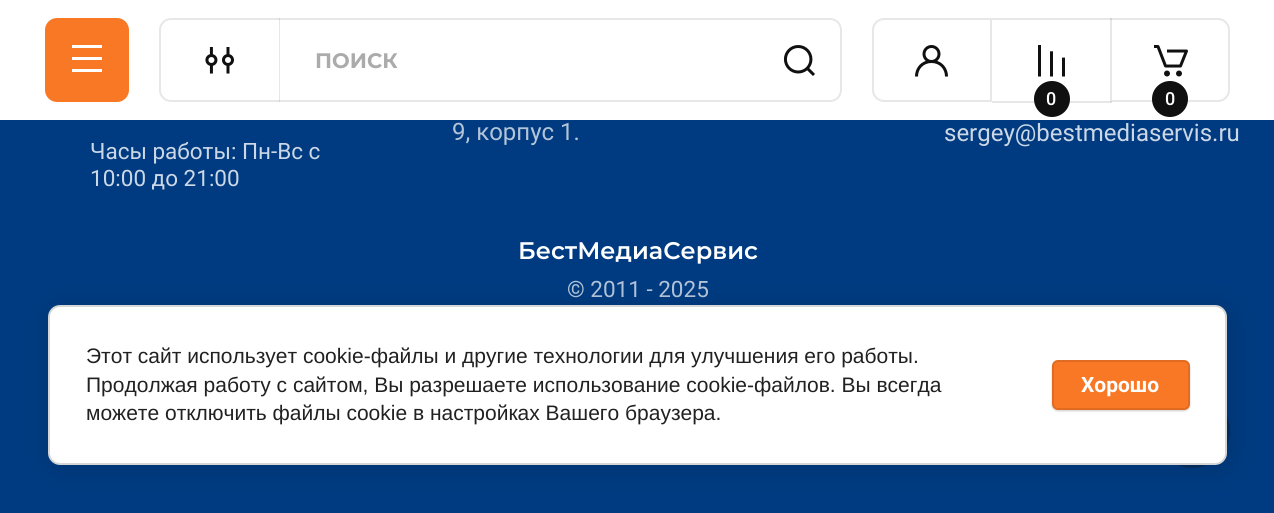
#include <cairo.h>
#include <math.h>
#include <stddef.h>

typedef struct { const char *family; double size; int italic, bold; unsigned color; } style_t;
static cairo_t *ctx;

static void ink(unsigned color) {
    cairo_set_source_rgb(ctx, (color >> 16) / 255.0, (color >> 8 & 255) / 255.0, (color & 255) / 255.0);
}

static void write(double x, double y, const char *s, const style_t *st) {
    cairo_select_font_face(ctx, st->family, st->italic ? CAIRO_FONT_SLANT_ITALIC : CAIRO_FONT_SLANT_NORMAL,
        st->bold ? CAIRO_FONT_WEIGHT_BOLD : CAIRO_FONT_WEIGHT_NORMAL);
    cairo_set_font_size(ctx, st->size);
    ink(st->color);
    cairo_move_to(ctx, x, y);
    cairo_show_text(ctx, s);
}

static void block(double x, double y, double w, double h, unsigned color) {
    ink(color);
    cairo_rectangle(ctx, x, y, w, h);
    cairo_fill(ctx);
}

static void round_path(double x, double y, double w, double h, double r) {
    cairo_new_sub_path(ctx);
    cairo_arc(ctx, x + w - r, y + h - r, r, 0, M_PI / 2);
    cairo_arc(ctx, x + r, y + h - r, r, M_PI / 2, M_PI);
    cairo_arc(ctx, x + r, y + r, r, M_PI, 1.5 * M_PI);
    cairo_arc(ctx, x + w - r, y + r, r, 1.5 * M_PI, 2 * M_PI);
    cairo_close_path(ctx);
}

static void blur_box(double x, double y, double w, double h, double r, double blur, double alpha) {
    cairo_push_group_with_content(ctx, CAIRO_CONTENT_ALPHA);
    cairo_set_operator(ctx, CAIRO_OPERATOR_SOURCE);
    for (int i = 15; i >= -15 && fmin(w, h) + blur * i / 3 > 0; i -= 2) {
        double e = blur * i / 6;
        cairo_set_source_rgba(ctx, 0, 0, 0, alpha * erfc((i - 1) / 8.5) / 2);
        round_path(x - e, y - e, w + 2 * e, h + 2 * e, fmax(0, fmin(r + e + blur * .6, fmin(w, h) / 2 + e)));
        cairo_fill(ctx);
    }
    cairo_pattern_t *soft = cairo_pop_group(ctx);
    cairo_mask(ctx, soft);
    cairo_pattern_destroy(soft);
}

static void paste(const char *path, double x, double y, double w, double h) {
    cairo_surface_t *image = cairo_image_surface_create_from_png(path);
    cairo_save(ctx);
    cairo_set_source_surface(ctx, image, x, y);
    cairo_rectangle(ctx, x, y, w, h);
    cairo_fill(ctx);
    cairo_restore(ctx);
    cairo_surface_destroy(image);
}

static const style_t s1 = {"Montserrat", 21, 0, 1, 0xababab};
static const style_t s2 = {"Roboto Medium", 18, 0, 0, 0xffffff};
static const style_t s3 = {"Roboto", 24, 0, 0, 0xb3c4d9};
static const style_t s4 = {"Roboto", 24, 0, 0, 0xccd8e6};
static const style_t s5 = {"Roboto", 22.5, 0, 0, 0xccd8e6};
static const style_t s6 = {"Montserrat SemiBold", 24, 0, 0, 0xffffff};
static const style_t s7 = {"Roboto", 22.5, 0, 0, 0xb3c4d9};
static const style_t s8 = {"Liberation Sans", 21, 0, 0, 0x212121};
static const style_t s9 = {"Roboto", 21, 0, 1, 0xffffff};

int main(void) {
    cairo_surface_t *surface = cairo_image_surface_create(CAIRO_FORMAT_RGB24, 1274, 513);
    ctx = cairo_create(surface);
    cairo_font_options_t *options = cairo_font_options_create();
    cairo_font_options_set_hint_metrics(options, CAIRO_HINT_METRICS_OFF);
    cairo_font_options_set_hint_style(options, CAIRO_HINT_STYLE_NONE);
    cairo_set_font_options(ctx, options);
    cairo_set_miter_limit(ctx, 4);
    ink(0x003b81);
    cairo_paint(ctx);
    block(0, 0, 1274, 120, 0xffffff);
    ink(0xf97825);
    round_path(45, 18, 84, 84, 12);
    cairo_fill(ctx);
    paste("pic1.png", 72, 45, 30, 27);
    round_path(160, 19, 681, 82, 11);
    ink(0xe7e7e7);
    cairo_stroke(ctx);
    paste("pic2.png", 205, 47, 29, 27);
    cairo_set_source_rgba(ctx, 0.063, 0.063, 0.063, 0.1);
    cairo_rectangle(ctx, 279, 18, 1, 84);
    cairo_fill(ctx);
    write(315, 68, "ПОИСК", &s1);
    paste("pic3.png", 783, 45, 32, 31);
    cairo_new_path(ctx);
    cairo_move_to(ctx, 884, 19);
    cairo_line_to(ctx, 991, 19);
    cairo_line_to(ctx, 991, 101);
    cairo_line_to(ctx, 884, 101);
    cairo_curve_to(ctx, 878, 101, 873, 96, 873, 90);
    cairo_line_to(ctx, 873, 30);
    cairo_curve_to(ctx, 873, 24, 878, 19, 884, 19);
    cairo_close_path(ctx);
    ink(0xe7e7e7);
    cairo_stroke(ctx);
    paste("pic4.png", 915, 45, 33, 32);
    block(992, 18, 120, 2, 0xe7e7e7);
    block(992, 101, 120, 2, 0xe7e7e7);
    paste("pic5.png", 1038, 45, 27, 32);
    ink(0x101010);
    cairo_arc(ctx, 1052, 99, 18, 0, 2 * M_PI);
    cairo_fill(ctx);
    write(1046, 105, "0", &s2);
    cairo_new_path(ctx);
    cairo_move_to(ctx, 1111, 19);
    cairo_line_to(ctx, 1218, 19);
    cairo_curve_to(ctx, 1224, 19, 1229, 24, 1229, 30);
    cairo_line_to(ctx, 1229, 90);
    cairo_curve_to(ctx, 1229, 96, 1224, 101, 1218, 101);
    cairo_line_to(ctx, 1111, 101);
    cairo_close_path(ctx);
    cairo_set_source_rgba(ctx, 0.063, 0.063, 0.063, 0.1);
    cairo_stroke(ctx);
    paste("pic6.png", 1154, 45, 34, 32);
    ink(0x101010);
    cairo_arc(ctx, 1170, 99, 18, 0, 2 * M_PI);
    cairo_fill(ctx);
    write(1165, 105, "0", &s2);
    write(452, 140, "9, корпус 1.", &s3);
    write(944, 141, "sergey@bestmediaservis.ru", &s4);
    write(90, 159, "Часы работы: Пн-Вс с", &s5);
    write(90, 186, "10:00 до 21:00", &s5);
    write(518, 259, "БестМедиаСервис", &s6);
    write(567, 297, "© 2011 - 2025", &s7);
    ink(0x052e5f);
    cairo_new_path(ctx);
    cairo_arc(ctx, 1192.5, 430.5, 37.5, 0, 2 * M_PI);
    cairo_fill(ctx);
    ink(0x000000);
    blur_box(51, 308, 1179, 160, 12, 13.5, 0.14);
    ink(0xffffff);
    round_path(49, 306, 1177, 158, 11);
    cairo_fill_preserve(ctx);
    ink(0xd6d6d6);
    cairo_stroke(ctx);
    write(86, 363, "Этот сайт использует cookie-файлы и другие технологии для улучшения его работы.", &s8);
    write(86, 392, "Продолжая работу с сайтом, Вы разрешаете использование cookie-файлов. Вы всегда", &s8);
    write(86, 420, "можете отключить файлы cookie в настройках Вашего браузера.", &s8);
    ink(0x000000);
    blur_box(1052, 362, 138, 49, 6, 1, 0.2);
    ink(0xf97825);
    round_path(1052, 360, 138, 50, 6);
    cairo_fill(ctx);
    round_path(1053, 361, 136, 48, 5);
    cairo_set_source_rgba(ctx, 0, 0, 0, 0.1);
    cairo_stroke(ctx);
    write(1081, 392, "Хорошо", &s9);
    cairo_surface_write_to_png(surface, "screenshot.png");
    cairo_font_options_destroy(options);
    cairo_destroy(ctx);
    cairo_surface_destroy(surface);
    return 0;
}
